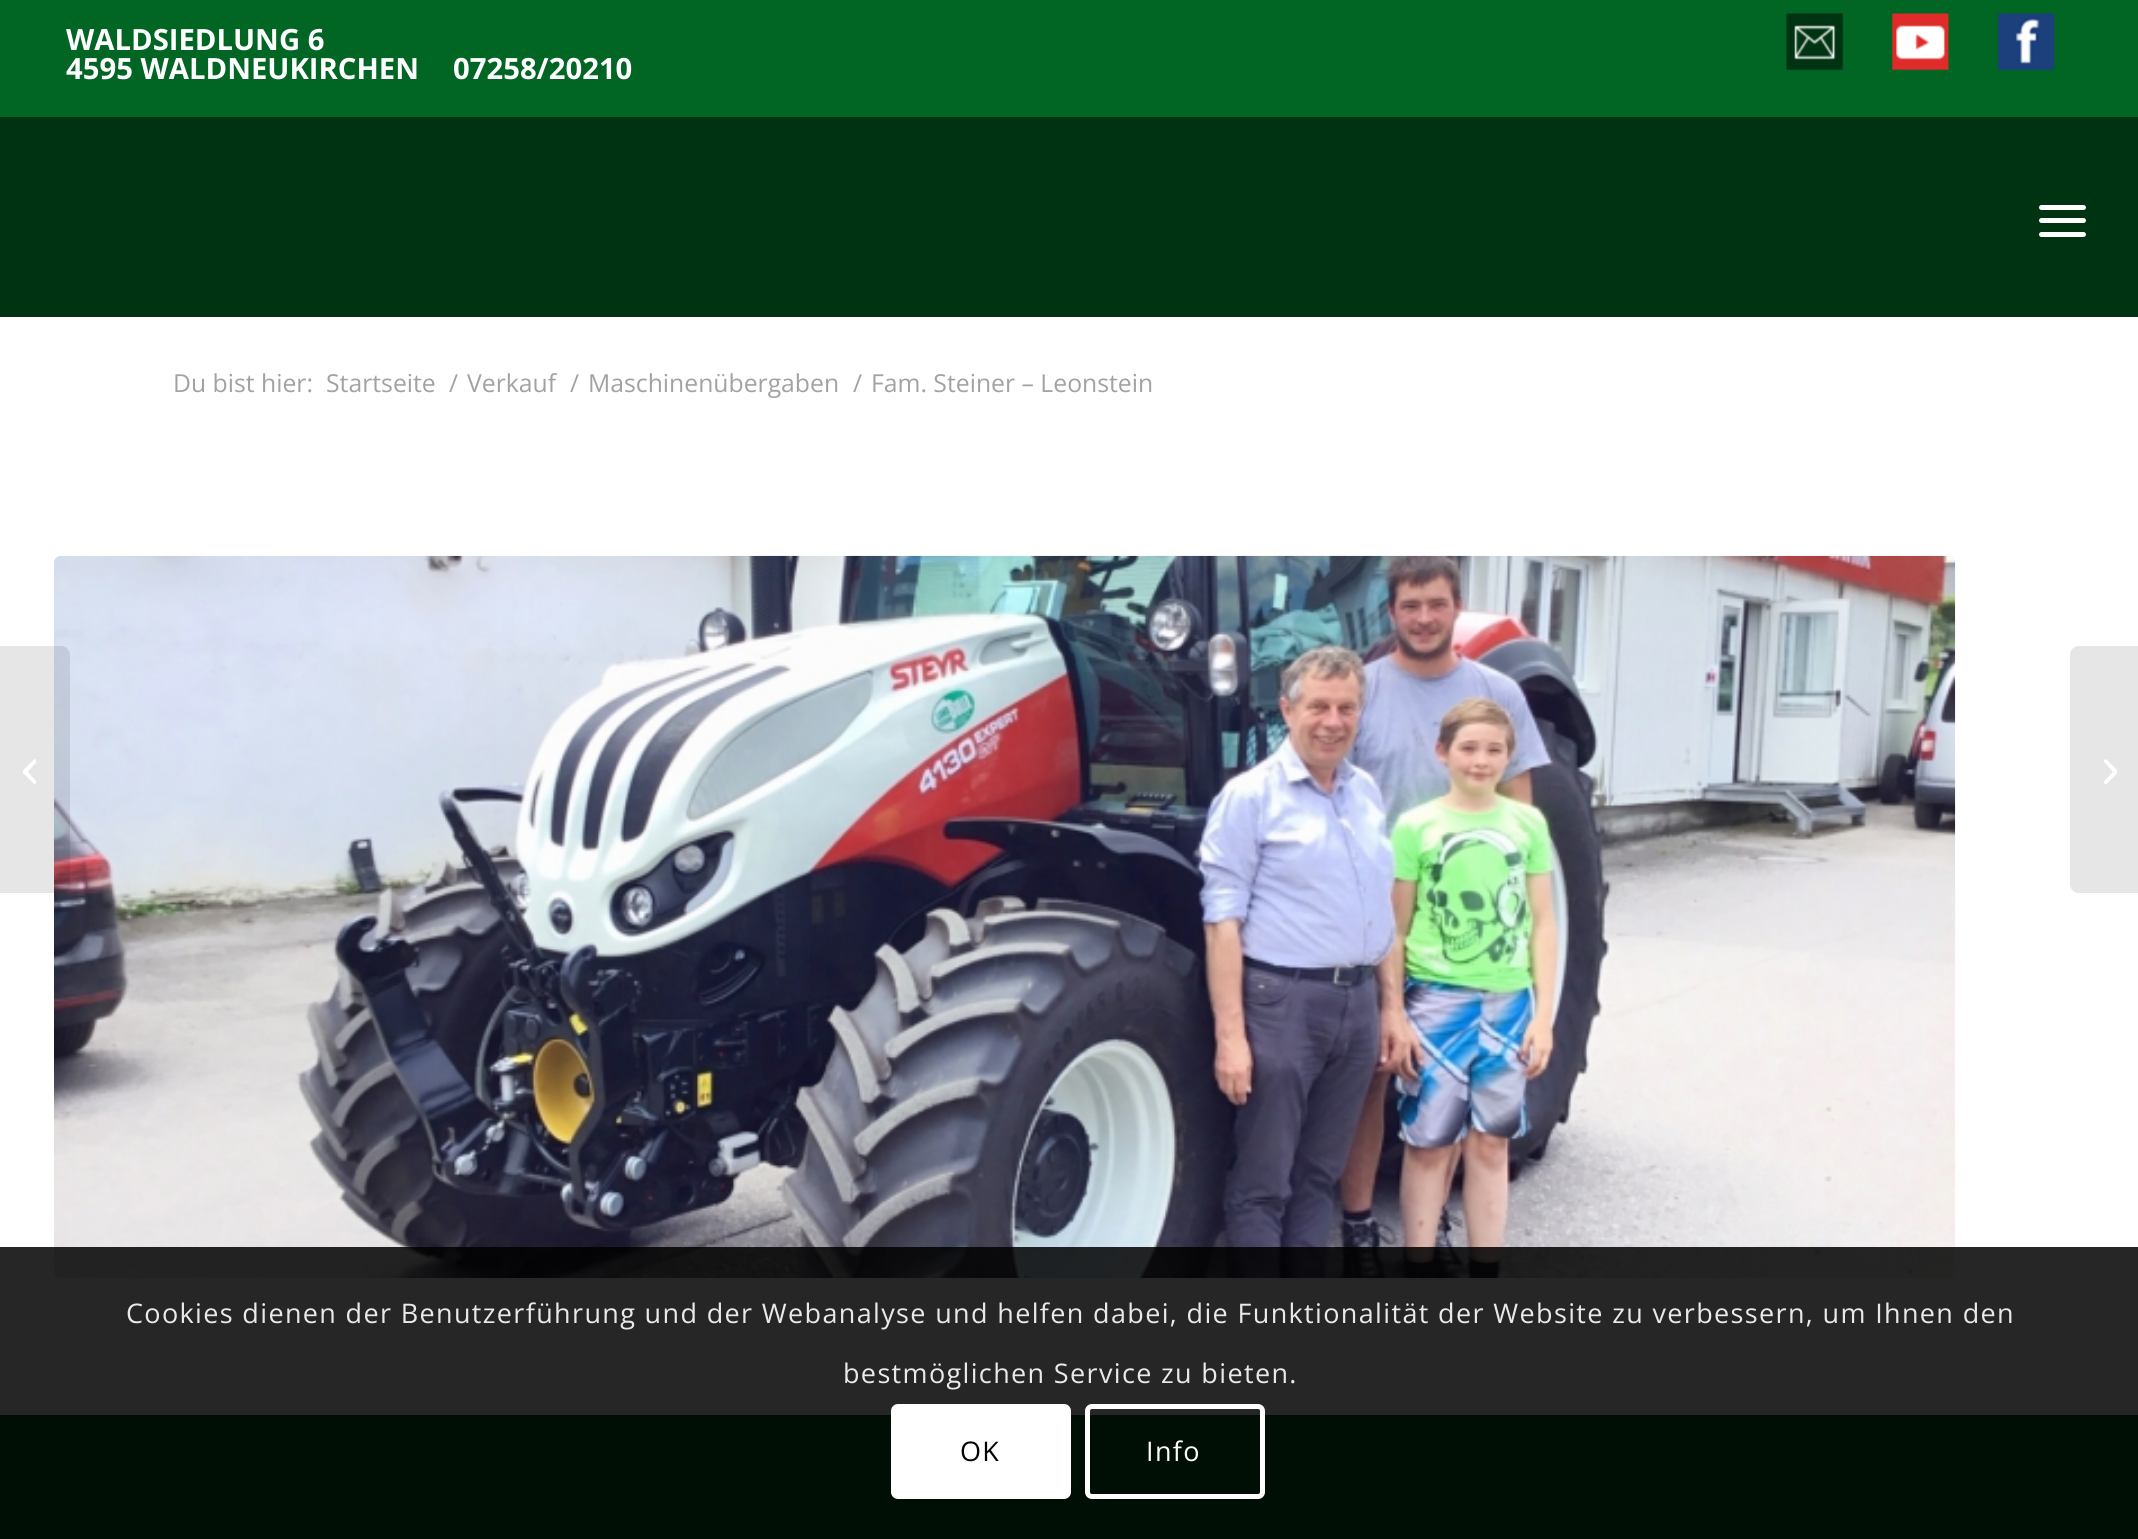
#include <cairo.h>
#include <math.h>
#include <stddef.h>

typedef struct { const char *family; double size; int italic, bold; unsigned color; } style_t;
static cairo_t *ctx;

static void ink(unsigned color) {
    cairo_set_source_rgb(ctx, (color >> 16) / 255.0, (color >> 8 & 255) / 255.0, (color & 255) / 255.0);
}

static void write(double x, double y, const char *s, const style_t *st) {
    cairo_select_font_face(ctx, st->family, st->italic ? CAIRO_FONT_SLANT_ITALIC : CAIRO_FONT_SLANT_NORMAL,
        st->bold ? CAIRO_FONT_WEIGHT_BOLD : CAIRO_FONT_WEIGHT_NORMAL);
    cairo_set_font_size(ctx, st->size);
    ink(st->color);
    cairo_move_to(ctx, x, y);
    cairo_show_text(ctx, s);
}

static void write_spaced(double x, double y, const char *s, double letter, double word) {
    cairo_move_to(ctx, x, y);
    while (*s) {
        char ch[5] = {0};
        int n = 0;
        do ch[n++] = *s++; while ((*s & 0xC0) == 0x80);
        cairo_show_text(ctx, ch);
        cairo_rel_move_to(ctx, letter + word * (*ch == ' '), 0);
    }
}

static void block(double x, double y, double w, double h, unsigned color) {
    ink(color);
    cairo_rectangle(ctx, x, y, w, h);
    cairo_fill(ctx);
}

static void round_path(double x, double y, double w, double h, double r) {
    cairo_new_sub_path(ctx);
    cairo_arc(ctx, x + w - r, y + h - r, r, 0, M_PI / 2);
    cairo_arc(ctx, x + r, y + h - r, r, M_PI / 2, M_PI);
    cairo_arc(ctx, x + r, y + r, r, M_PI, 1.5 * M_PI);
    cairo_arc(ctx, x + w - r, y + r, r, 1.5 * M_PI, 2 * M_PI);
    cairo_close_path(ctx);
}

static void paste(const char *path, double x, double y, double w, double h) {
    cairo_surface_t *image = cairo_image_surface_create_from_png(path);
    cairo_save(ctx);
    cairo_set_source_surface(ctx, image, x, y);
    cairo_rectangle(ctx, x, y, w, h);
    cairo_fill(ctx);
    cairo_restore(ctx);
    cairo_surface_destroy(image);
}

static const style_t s1 = {"Open Sans", 29.25, 0, 1, 0xffffff};
static const style_t s2 = {"Open Sans", 24.75, 0, 0, 0xa2a2a2};

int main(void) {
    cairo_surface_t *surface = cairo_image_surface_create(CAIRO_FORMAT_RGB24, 2138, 1539);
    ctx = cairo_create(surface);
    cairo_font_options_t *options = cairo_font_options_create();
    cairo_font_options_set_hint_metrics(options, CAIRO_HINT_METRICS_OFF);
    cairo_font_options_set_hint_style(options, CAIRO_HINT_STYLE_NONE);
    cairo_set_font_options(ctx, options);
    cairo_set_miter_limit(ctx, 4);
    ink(0xffffff);
    cairo_paint(ctx);
    block(0, 0, 2138, 117, 0x016624);
    write(66, 50, "WALDSIEDLUNG 6", &s1);
    write(66, 79, "4595 WALDNEUKIRCHEN", &s1);
    write(453, 79, "07258/20210", &s1);
    paste("pic1.png", 1786, 13, 58, 58);
    paste("pic2.png", 1892, 13, 58, 58);
    paste("pic3.png", 1997, 13, 58, 58);
    block(0, 117, 2138, 200, 0x003312);
    ink(0xffffff);
    round_path(2039, 218, 47, 5, 2.5);
    cairo_fill(ctx);
    round_path(2039, 205, 47, 5, 2.5);
    cairo_fill(ctx);
    round_path(2039, 232, 47, 5, 2.5);
    cairo_fill(ctx);
    write(173, 392, "Du bist hier:", &s2);
    write(326, 392, "Startseite", &s2);
    write(449, 392, "/", &s2);
    write(467, 392, "Verkauf", &s2);
    write(570, 392, "/", &s2);
    write(588, 392, "Maschinenübergaben", &s2);
    write(853, 392, "/", &s2);
    write(871, 392, "Fam. Steiner – Leonstein", &s2);
    paste("pic4.png", 54, 555, 1902, 723);
    block(0, 1415, 2138, 124, 0x016624);
    cairo_set_source_rgba(ctx, 0, 0, 0, 0.1);
    cairo_new_path(ctx);
    cairo_move_to(ctx, 0, 646);
    cairo_line_to(ctx, 61, 646);
    cairo_curve_to(ctx, 66, 646, 70, 650, 70, 655);
    cairo_line_to(ctx, 70, 884);
    cairo_curve_to(ctx, 70, 889, 66, 893, 61, 893);
    cairo_line_to(ctx, 0, 893);
    cairo_close_path(ctx);
    cairo_fill(ctx);
    paste("pic5.png", 23, 759, 13, 25);
    ink(0xe6e6e6);
    cairo_new_path(ctx);
    cairo_move_to(ctx, 2079, 646);
    cairo_line_to(ctx, 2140, 646);
    cairo_line_to(ctx, 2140, 893);
    cairo_line_to(ctx, 2079, 893);
    cairo_curve_to(ctx, 2074, 893, 2070, 889, 2070, 884);
    cairo_line_to(ctx, 2070, 655);
    cairo_curve_to(ctx, 2070, 650, 2074, 646, 2079, 646);
    cairo_close_path(ctx);
    cairo_fill(ctx);
    paste("pic6.png", 2104, 759, 13, 25);
    cairo_set_source_rgba(ctx, 0, 0, 0, 0.85);
    cairo_rectangle(ctx, 0, 1247, 2138, 292);
    cairo_fill(ctx);
    cairo_set_font_size(ctx, 27);
    ink(0xe9e9e9);
    write_spaced(126, 1323, "Cookies dienen der Benutzerführung und der Webanalyse und helfen dabei, die Funktionalität der Website zu verbessern, um Ihnen den", 1.35, 0);
    write_spaced(843, 1383, "bestmöglichen Service zu bieten.", 1.35, 0);
    ink(0xffffff);
    round_path(891, 1404, 180, 95, 7);
    cairo_fill(ctx);
    ink(0x000000);
    write_spaced(960, 1461, "OK", 1.35, 0);
    round_path(1087.5, 1406.5, 175, 90, 4.5);
    ink(0xffffff);
    cairo_set_line_width(ctx, 5);
    cairo_stroke(ctx);
    write_spaced(1146, 1461, "Info", 1.35, 0);
    cairo_surface_write_to_png(surface, "screenshot.png");
    cairo_font_options_destroy(options);
    cairo_destroy(ctx);
    cairo_surface_destroy(surface);
    return 0;
}
